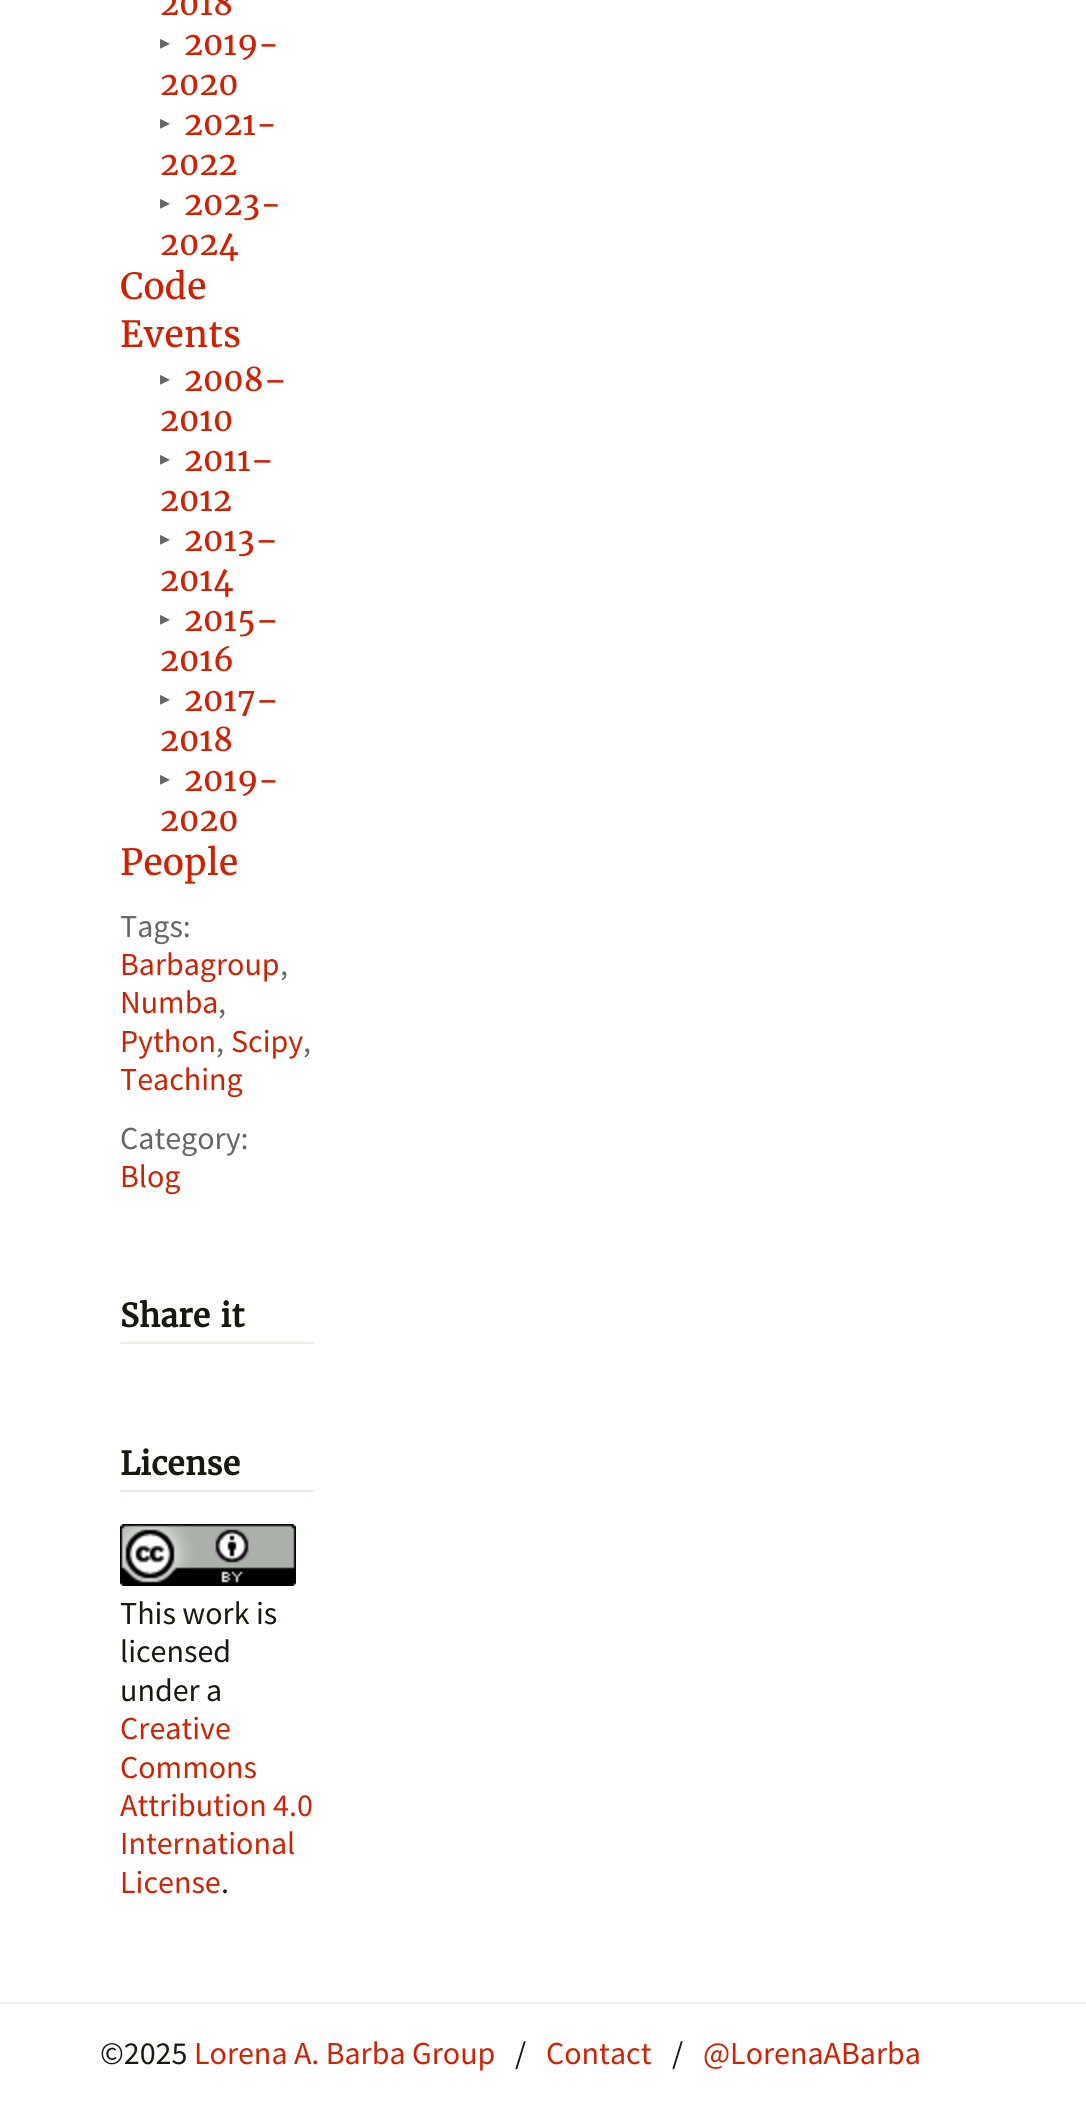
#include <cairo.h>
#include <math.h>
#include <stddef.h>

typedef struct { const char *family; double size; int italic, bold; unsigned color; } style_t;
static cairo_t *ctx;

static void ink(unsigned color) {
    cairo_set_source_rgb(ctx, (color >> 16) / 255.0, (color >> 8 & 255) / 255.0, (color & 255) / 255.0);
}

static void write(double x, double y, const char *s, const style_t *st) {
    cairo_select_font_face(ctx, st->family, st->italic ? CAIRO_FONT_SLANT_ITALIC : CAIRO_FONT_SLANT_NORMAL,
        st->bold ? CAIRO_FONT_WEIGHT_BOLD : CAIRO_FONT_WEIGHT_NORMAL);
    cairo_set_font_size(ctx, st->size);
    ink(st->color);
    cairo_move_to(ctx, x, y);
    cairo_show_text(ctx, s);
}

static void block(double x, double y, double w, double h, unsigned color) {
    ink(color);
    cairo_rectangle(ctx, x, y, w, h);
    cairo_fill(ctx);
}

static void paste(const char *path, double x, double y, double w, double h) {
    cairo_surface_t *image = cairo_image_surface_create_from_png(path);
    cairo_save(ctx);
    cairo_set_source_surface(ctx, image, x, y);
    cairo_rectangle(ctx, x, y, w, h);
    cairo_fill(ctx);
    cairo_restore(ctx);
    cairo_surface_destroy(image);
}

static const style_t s1 = {"Merriweather", 32, 0, 0, 0xcd2305};
static const style_t s2 = {"DejaVu Sans", 20, 0, 0, 0x666666};
static const style_t s3 = {"Merriweather", 36, 0, 0, 0xcd2305};
static const style_t s4 = {"Source Sans Pro", 32, 0, 0, 0x666666};
static const style_t s5 = {"Source Sans Pro", 32, 0, 0, 0xcd2305};
static const style_t s6 = {"Merriweather", 32, 0, 1, 0x181810};
static const style_t s7 = {"Source Sans Pro", 32, 0, 0, 0x181810};

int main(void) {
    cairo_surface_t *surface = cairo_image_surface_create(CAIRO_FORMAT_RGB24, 1086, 2101);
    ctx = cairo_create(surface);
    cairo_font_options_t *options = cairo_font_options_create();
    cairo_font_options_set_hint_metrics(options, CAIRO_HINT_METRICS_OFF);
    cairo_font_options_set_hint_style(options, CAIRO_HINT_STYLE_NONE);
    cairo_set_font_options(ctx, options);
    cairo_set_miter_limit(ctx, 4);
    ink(0xffffff);
    cairo_paint(ctx);
    write(160, 15, "2018", &s1);
    write(160, 49, "▸", &s2);
    write(184, 55, "2019-", &s1);
    write(160, 95, "2020", &s1);
    write(160, 129, "▸", &s2);
    write(184, 135, "2021-", &s1);
    write(160, 175, "2022", &s1);
    write(160, 209, "▸", &s2);
    write(184, 215, "2023-", &s1);
    write(160, 255, "2024", &s1);
    write(120, 299, "Code", &s3);
    write(120, 347, "Events", &s3);
    write(160, 385, "▸", &s2);
    write(184, 391, "2008–", &s1);
    write(160, 431, "2010", &s1);
    write(160, 465, "▸", &s2);
    write(184, 471, "2011–", &s1);
    write(160, 511, "2012", &s1);
    write(160, 545, "▸", &s2);
    write(184, 551, "2013–", &s1);
    write(160, 591, "2014", &s1);
    write(160, 625, "▸", &s2);
    write(184, 631, "2015–", &s1);
    write(160, 671, "2016", &s1);
    write(160, 705, "▸", &s2);
    write(184, 711, "2017–", &s1);
    write(160, 751, "2018", &s1);
    write(160, 785, "▸", &s2);
    write(184, 791, "2019-", &s1);
    write(160, 831, "2020", &s1);
    write(120, 875, "People", &s3);
    write(120, 937, "Tags:", &s4);
    write(120, 975, "Barbagroup", &s5);
    write(280, 975, ",", &s4);
    write(120, 1013, "Numba", &s5);
    write(218, 1013, ",", &s4);
    write(120, 1052, "Python", &s5);
    write(216, 1052, ",", &s4);
    write(231, 1052, "Scipy", &s5);
    write(303, 1052, ",", &s4);
    write(120, 1090, "Teaching", &s5);
    write(120, 1149, "Category:", &s4);
    write(120, 1187, "Blog", &s5);
    block(120, 1342, 194, 2, 0xebebe1);
    write(120, 1327, "Share it", &s6);
    block(120, 1490, 194, 2, 0xebebe1);
    write(120, 1475, "License", &s6);
    paste("pic1.png", 120, 1524, 176, 62);
    write(120, 1624, "This work is", &s7);
    write(120, 1662, "licensed", &s7);
    write(120, 1701, "under a", &s7);
    write(120, 1739, "Creative", &s5);
    write(120, 1778, "Commons", &s5);
    write(120, 1816, "Attribution 4.0", &s5);
    write(120, 1854, "International", &s5);
    write(120, 1893, "License", &s5);
    write(221, 1893, ".", &s7);
    block(0, 2002, 1086, 2, 0xefefef);
    write(100, 2064, "©2025", &s7);
    write(194, 2064, "Lorena A. Barba Group", &s5);
    write(515, 2064, "/", &s7);
    write(546, 2064, "Contact", &s5);
    write(672, 2064, "/", &s7);
    write(703, 2064, "@LorenaABarba", &s5);
    cairo_surface_write_to_png(surface, "screenshot.png");
    cairo_font_options_destroy(options);
    cairo_destroy(ctx);
    cairo_surface_destroy(surface);
    return 0;
}
